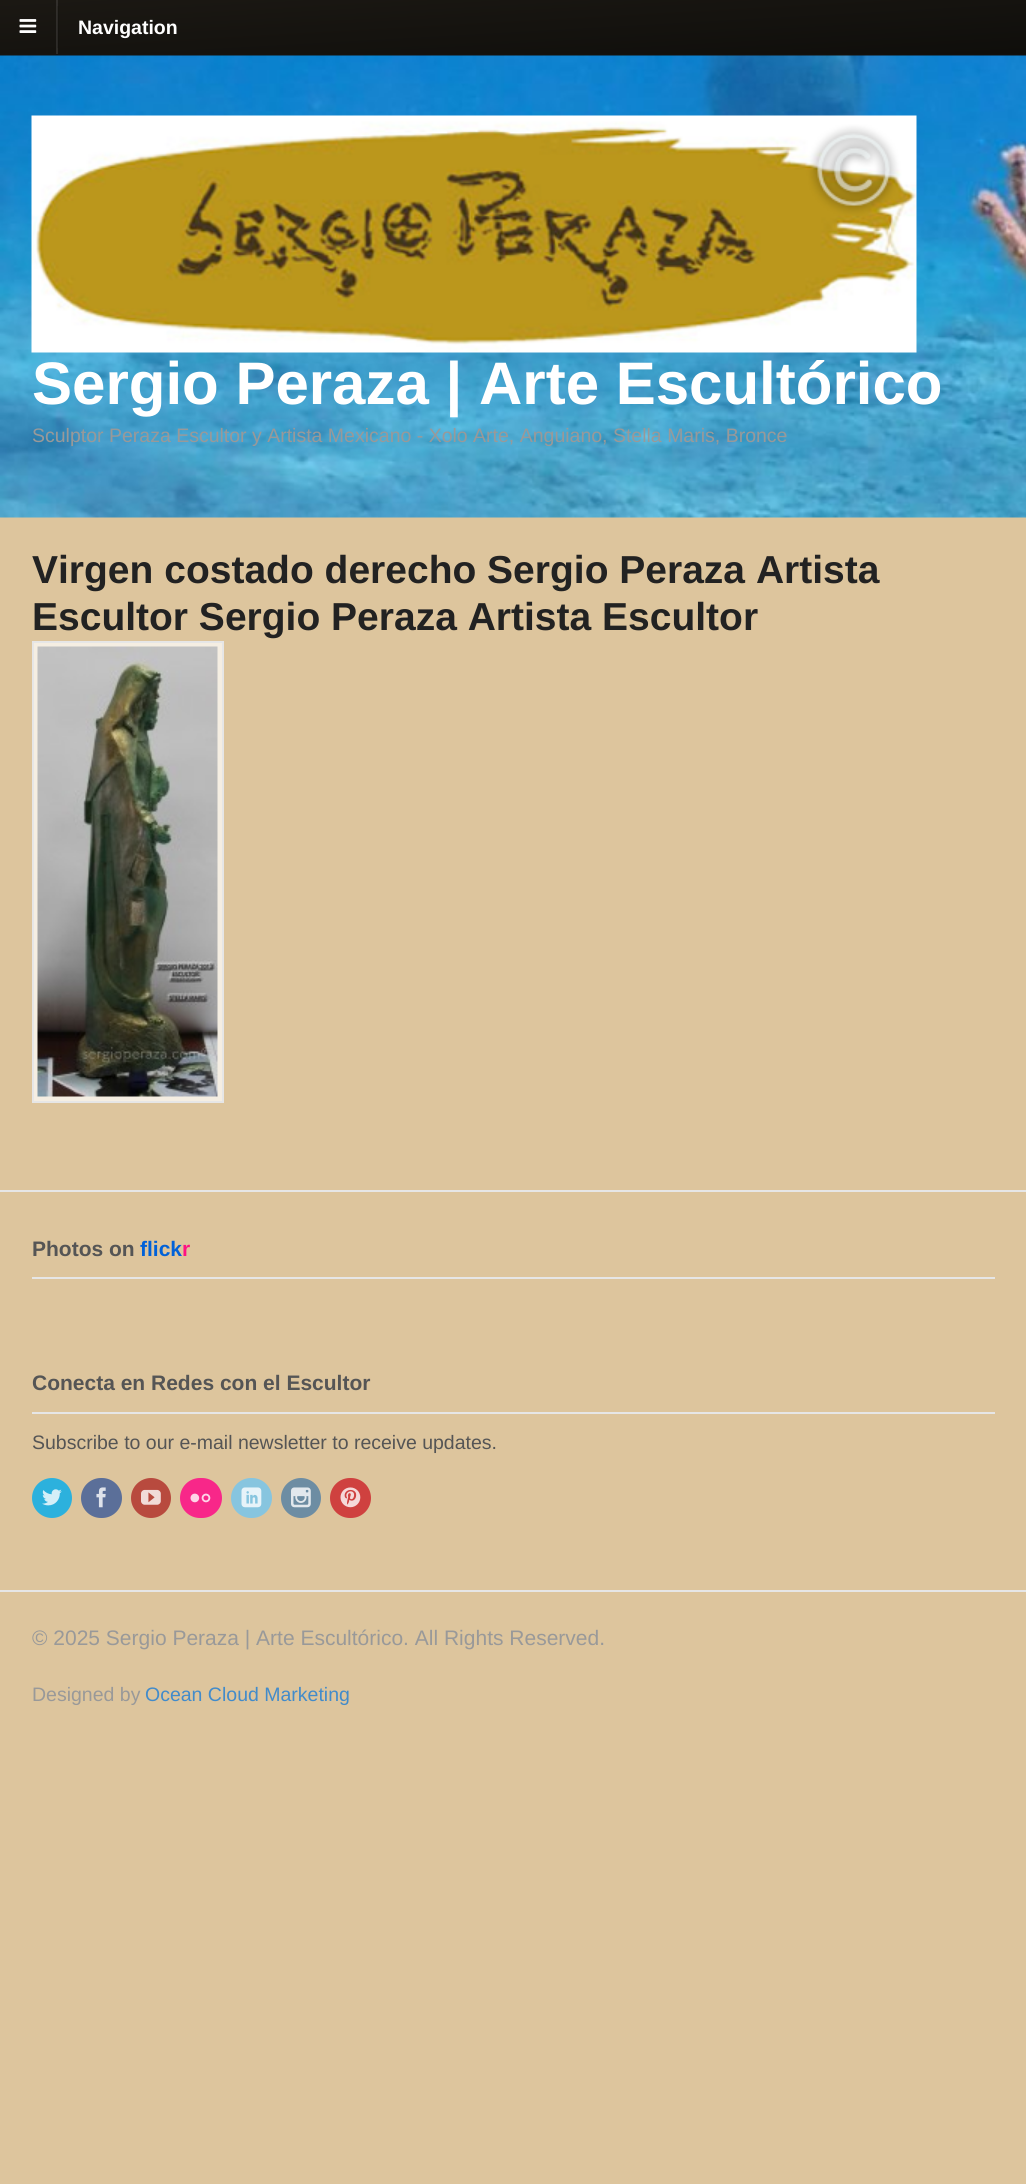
#include <cairo.h>
#include <math.h>
#include <stddef.h>

typedef struct { const char *family; double size; int italic, bold; unsigned color; } style_t;
static cairo_t *ctx;

static void ink(unsigned color) {
    cairo_set_source_rgb(ctx, (color >> 16) / 255.0, (color >> 8 & 255) / 255.0, (color & 255) / 255.0);
}

static void write(double x, double y, const char *s, const style_t *st) {
    cairo_select_font_face(ctx, st->family, st->italic ? CAIRO_FONT_SLANT_ITALIC : CAIRO_FONT_SLANT_NORMAL,
        st->bold ? CAIRO_FONT_WEIGHT_BOLD : CAIRO_FONT_WEIGHT_NORMAL);
    cairo_set_font_size(ctx, st->size);
    ink(st->color);
    cairo_move_to(ctx, x, y);
    cairo_show_text(ctx, s);
}

static void block(double x, double y, double w, double h, unsigned color) {
    ink(color);
    cairo_rectangle(ctx, x, y, w, h);
    cairo_fill(ctx);
}

static void round_path(double x, double y, double w, double h, double r) {
    cairo_new_sub_path(ctx);
    cairo_arc(ctx, x + w - r, y + h - r, r, 0, M_PI / 2);
    cairo_arc(ctx, x + r, y + h - r, r, M_PI / 2, M_PI);
    cairo_arc(ctx, x + r, y + r, r, M_PI, 1.5 * M_PI);
    cairo_arc(ctx, x + w - r, y + r, r, 1.5 * M_PI, 2 * M_PI);
    cairo_close_path(ctx);
}

static void paste(const char *path, double x, double y, double w, double h) {
    cairo_surface_t *image = cairo_image_surface_create_from_png(path);
    cairo_save(ctx);
    cairo_set_source_surface(ctx, image, x, y);
    cairo_rectangle(ctx, x, y, w, h);
    cairo_fill(ctx);
    cairo_restore(ctx);
    cairo_surface_destroy(image);
}

static const style_t s1 = {"Liberation Sans", 19.5, 0, 1, 0xffffff};
static const style_t s2 = {"Liberation Sans", 60, 0, 1, 0xffffff};
static const style_t s3 = {"Liberation Sans", 19.5, 0, 0, 0x999999};
static const style_t s4 = {"Liberation Sans", 39, 0, 1, 0x222222};
static const style_t s5 = {"Liberation Sans", 21, 0, 1, 0x555555};
static const style_t s6 = {"Liberation Sans", 21, 0, 1, 0x0061d8};
static const style_t s7 = {"Liberation Sans", 21, 0, 1, 0xff1183};
static const style_t s8 = {"Liberation Sans", 19.5, 0, 0, 0x555555};
static const style_t s9 = {"Liberation Sans", 21, 0, 0, 0x999999};
static const style_t s10 = {"Liberation Sans", 19.5, 0, 0, 0x428bca};

int main(void) {
    cairo_surface_t *surface = cairo_image_surface_create(CAIRO_FORMAT_RGB24, 1026, 2184);
    ctx = cairo_create(surface);
    cairo_font_options_t *options = cairo_font_options_create();
    cairo_font_options_set_hint_metrics(options, CAIRO_HINT_METRICS_OFF);
    cairo_font_options_set_hint_style(options, CAIRO_HINT_STYLE_NONE);
    cairo_set_font_options(ctx, options);
    cairo_set_miter_limit(ctx, 4);
    cairo_pattern_t *gradient;
    ink(0xddc59d);
    cairo_paint(ctx);
    gradient = cairo_pattern_create_linear(510, -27, 516, 81);
    cairo_pattern_add_color_stop_rgba(gradient, 0, 0.106, 0.094, 0.075, 1);
    cairo_pattern_add_color_stop_rgba(gradient, 1, 0.059, 0.055, 0.043, 1);
    cairo_set_source(ctx, gradient);
    cairo_pattern_destroy(gradient);
    cairo_rectangle(ctx, 0, 0, 1026, 54);
    cairo_fill(ctx);
    gradient = cairo_pattern_create_linear(510, -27, 516, 81);
    cairo_pattern_add_color_stop_rgba(gradient, 0, 0.094, 0.086, 0.067, 1);
    cairo_pattern_add_color_stop_rgba(gradient, 1, 0.055, 0.051, 0.039, 1);
    cairo_set_source(ctx, gradient);
    cairo_pattern_destroy(gradient);
    cairo_rectangle(ctx, 58, 6, 1, 42);
    cairo_fill(ctx);
    gradient = cairo_pattern_create_linear(510, -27, 516, 81);
    cairo_pattern_add_color_stop_rgba(gradient, 0, 0.196, 0.184, 0.169, 1);
    cairo_pattern_add_color_stop_rgba(gradient, 1, 0.153, 0.149, 0.137, 1);
    cairo_set_source(ctx, gradient);
    cairo_pattern_destroy(gradient);
    cairo_rectangle(ctx, 56, 0, 2, 54);
    cairo_fill(ctx);
    gradient = cairo_pattern_create_linear(510, -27, 516, 81);
    cairo_pattern_add_color_stop_rgba(gradient, 0, 0.176, 0.165, 0.153, 1);
    cairo_pattern_add_color_stop_rgba(gradient, 1, 0.137, 0.133, 0.125, 1);
    cairo_set_source(ctx, gradient);
    cairo_pattern_destroy(gradient);
    cairo_rectangle(ctx, 57, 6, 1, 42);
    cairo_fill(ctx);
    gradient = cairo_pattern_create_linear(510, 27, 516, 135);
    cairo_pattern_add_color_stop_rgba(gradient, 0, 0.086, 0.075, 0.059, 1);
    cairo_pattern_add_color_stop_rgba(gradient, 1, 0.047, 0.043, 0.035, 1);
    cairo_set_source(ctx, gradient);
    cairo_pattern_destroy(gradient);
    cairo_rectangle(ctx, 0, 54, 1026, 2);
    cairo_fill(ctx);
    paste("pic1.png", 19, 19, 18, 14);
    write(78, 34, "Navigation", &s1);
    paste("pic2.png", 0, 55, 1026, 463);
    paste("pic3.png", 31, 115, 886, 238);
    write(32, 404, "Sergio Peraza | Arte Escultórico", &s2);
    write(32, 442, "Sculptor Peraza Escultor y Artista Mexicano - Xolo Arte, Anguiano, Stella Maris, Bronce", &s3);
    write(32, 583, "Virgen costado derecho Sergio Peraza Artista", &s4);
    write(32, 630, "Escultor Sergio Peraza Artista Escultor", &s4);
    ink(0xf5eee2);
    cairo_rectangle(ctx, 33, 642, 190, 460);
    cairo_fill_preserve(ctx);
    ink(0xe6e6e6);
    cairo_stroke(ctx);
    paste("pic4.png", 37, 646, 181, 451);
    block(0, 1190, 1026, 2, 0xe6e6e6);
    block(32, 1277, 963, 2, 0xe6e6e6);
    write(32, 1256, "Photos on", &s5);
    write(140, 1256, "flick", &s6);
    write(182, 1256, "r", &s7);
    block(32, 1412, 963, 2, 0xe6e6e6);
    write(32, 1390, "Conecta en Redes con el Escultor", &s5);
    write(32, 1449, "Subscribe to our e-mail newsletter to receive updates.", &s8);
    ink(0x2cb1dd);
    cairo_new_path(ctx);
    cairo_arc(ctx, 52, 1498, 20, 0, 2 * M_PI);
    cairo_fill(ctx);
    paste("pic5.png", 42, 1489, 20, 17);
    ink(0x5b6f99);
    round_path(81, 1478, 41, 40, 20);
    cairo_fill(ctx);
    paste("pic6.png", 96, 1487, 10, 21);
    ink(0xb84a3e);
    cairo_arc(ctx, 151, 1498, 20, 0, 2 * M_PI);
    cairo_fill(ctx);
    paste("pic7.png", 141, 1489, 20, 16);
    ink(0xf82789);
    round_path(180, 1478, 42, 40, 20);
    cairo_fill(ctx);
    paste("pic8.png", 190, 1493, 21, 10);
    ink(0x87c5df);
    round_path(231, 1478, 41, 40, 20);
    cairo_fill(ctx);
    paste("pic9.png", 241, 1487, 21, 21);
    ink(0x6d8da3);
    cairo_arc(ctx, 301, 1498, 20, 0, 2 * M_PI);
    cairo_fill(ctx);
    paste("pic10.png", 291, 1487, 20, 21);
    ink(0xcf413f);
    round_path(330, 1478, 41, 40, 20);
    cairo_fill(ctx);
    paste("pic11.png", 340, 1487, 21, 21);
    block(0, 1590, 1026, 2, 0xe6e6e6);
    write(32, 1645, "© 2025 Sergio Peraza | Arte Escultórico. All Rights Reserved.", &s9);
    write(32, 1701, "Designed by", &s3);
    write(145, 1701, "Ocean Cloud Marketing", &s10);
    cairo_surface_write_to_png(surface, "screenshot.png");
    cairo_font_options_destroy(options);
    cairo_destroy(ctx);
    cairo_surface_destroy(surface);
    return 0;
}
